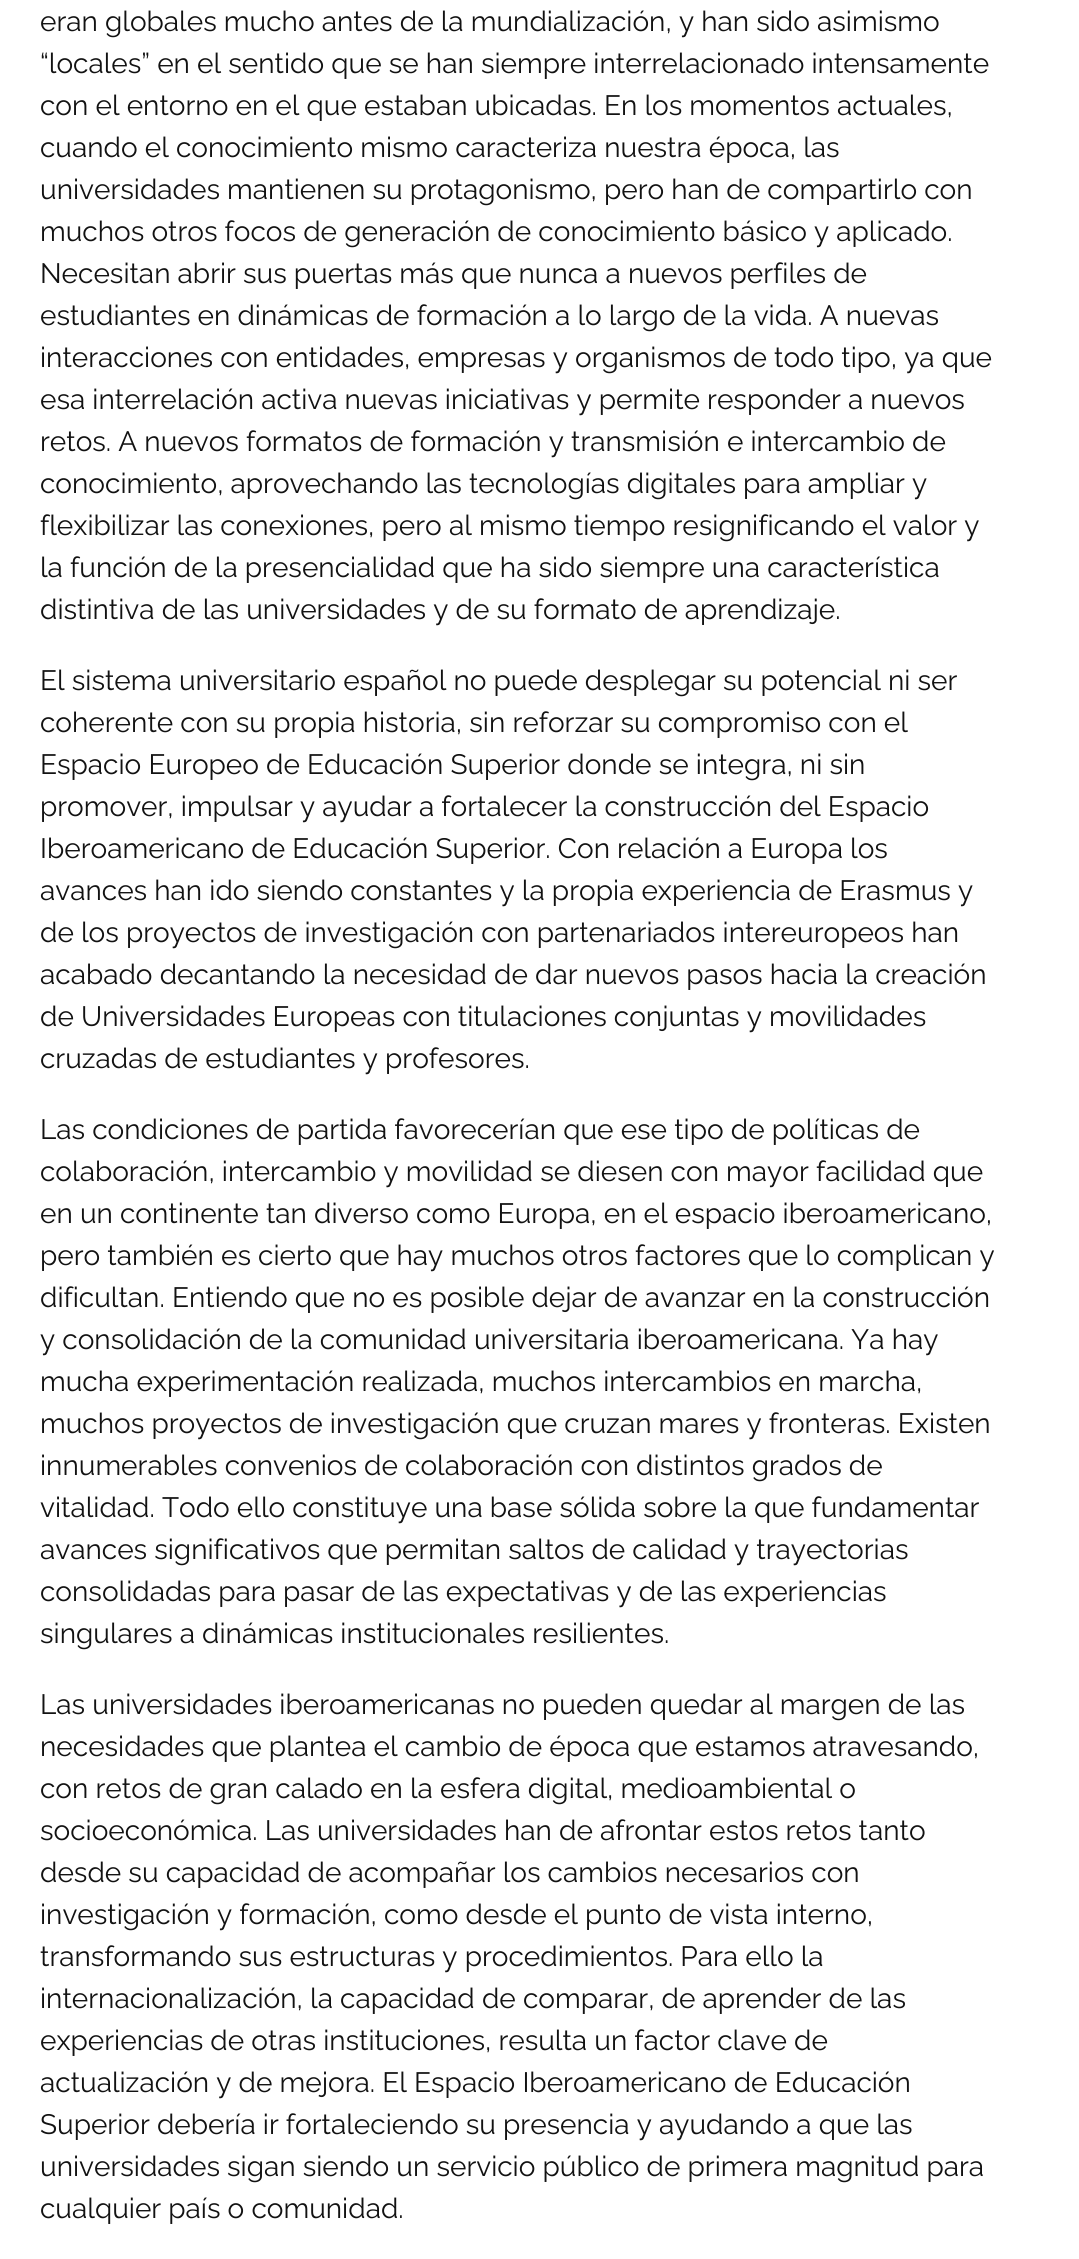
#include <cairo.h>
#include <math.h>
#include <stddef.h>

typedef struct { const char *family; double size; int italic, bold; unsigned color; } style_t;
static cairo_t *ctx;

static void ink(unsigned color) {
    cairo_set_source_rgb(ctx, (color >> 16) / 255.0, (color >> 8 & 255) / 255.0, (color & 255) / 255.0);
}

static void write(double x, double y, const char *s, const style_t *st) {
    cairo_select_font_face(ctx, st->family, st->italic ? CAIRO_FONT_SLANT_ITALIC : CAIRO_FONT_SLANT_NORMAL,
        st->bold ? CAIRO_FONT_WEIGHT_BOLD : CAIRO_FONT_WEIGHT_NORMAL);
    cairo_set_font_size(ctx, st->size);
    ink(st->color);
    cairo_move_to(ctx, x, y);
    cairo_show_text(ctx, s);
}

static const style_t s1 = {"Raleway", 28, 0, 0, 0x121212};

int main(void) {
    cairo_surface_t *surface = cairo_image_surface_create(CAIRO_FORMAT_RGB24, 1079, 2259);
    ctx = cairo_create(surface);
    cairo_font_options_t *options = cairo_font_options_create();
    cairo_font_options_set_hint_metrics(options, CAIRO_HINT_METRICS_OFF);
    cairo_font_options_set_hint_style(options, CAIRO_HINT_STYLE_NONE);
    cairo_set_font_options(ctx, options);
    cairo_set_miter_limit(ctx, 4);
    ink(0xffffff);
    cairo_paint(ctx);
    write(40, 31, "eran globales mucho antes de la mundialización, y han sido asimismo", &s1);
    write(40, 73, "“locales” en el sentido que se han siempre interrelacionado intensamente", &s1);
    write(40, 115, "con el entorno en el que estaban ubicadas. En los momentos actuales,", &s1);
    write(40, 157, "cuando el conocimiento mismo caracteriza nuestra época, las", &s1);
    write(40, 199, "universidades mantienen su protagonismo, pero han de compartirlo con", &s1);
    write(40, 241, "muchos otros focos de generación de conocimiento básico y aplicado.", &s1);
    write(40, 283, "Necesitan abrir sus puertas más que nunca a nuevos perfiles de", &s1);
    write(40, 325, "estudiantes en dinámicas de formación a lo largo de la vida. A nuevas", &s1);
    write(40, 367, "interacciones con entidades, empresas y organismos de todo tipo, ya que", &s1);
    write(40, 409, "esa interrelación activa nuevas iniciativas y permite responder a nuevos", &s1);
    write(40, 451, "retos. A nuevos formatos de formación y transmisión e intercambio de", &s1);
    write(40, 493, "conocimiento, aprovechando las tecnologías digitales para ampliar y", &s1);
    write(40, 535, "flexibilizar las conexiones, pero al mismo tiempo resignificando el valor y", &s1);
    write(40, 577, "la función de la presencialidad que ha sido siempre una característica", &s1);
    write(40, 619, "distintiva de las universidades y de su formato de aprendizaje.", &s1);
    write(40, 690, "El sistema universitario español no puede desplegar su potencial ni ser", &s1);
    write(40, 732, "coherente con su propia historia, sin reforzar su compromiso con el", &s1);
    write(40, 774, "Espacio Europeo de Educación Superior donde se integra, ni sin", &s1);
    write(40, 816, "promover, impulsar y ayudar a fortalecer la construcción del Espacio", &s1);
    write(40, 858, "Iberoamericano de Educación Superior. Con relación a Europa los", &s1);
    write(40, 900, "avances han ido siendo constantes y la propia experiencia de Erasmus y", &s1);
    write(40, 942, "de los proyectos de investigación con partenariados intereuropeos han", &s1);
    write(40, 984, "acabado decantando la necesidad de dar nuevos pasos hacia la creación", &s1);
    write(40, 1026, "de Universidades Europeas con titulaciones conjuntas y movilidades", &s1);
    write(40, 1068, "cruzadas de estudiantes y profesores.", &s1);
    write(40, 1139, "Las condiciones de partida favorecerían que ese tipo de políticas de", &s1);
    write(40, 1181, "colaboración, intercambio y movilidad se diesen con mayor facilidad que", &s1);
    write(40, 1223, "en un continente tan diverso como Europa, en el espacio iberoamericano,", &s1);
    write(40, 1265, "pero también es cierto que hay muchos otros factores que lo complican y", &s1);
    write(40, 1307, "dificultan. Entiendo que no es posible dejar de avanzar en la construcción", &s1);
    write(40, 1349, "y consolidación de la comunidad universitaria iberoamericana. Ya hay", &s1);
    write(40, 1391, "mucha experimentación realizada, muchos intercambios en marcha,", &s1);
    write(40, 1433, "muchos proyectos de investigación que cruzan mares y fronteras. Existen", &s1);
    write(40, 1475, "innumerables convenios de colaboración con distintos grados de", &s1);
    write(40, 1517, "vitalidad. Todo ello constituye una base sólida sobre la que fundamentar", &s1);
    write(40, 1559, "avances significativos que permitan saltos de calidad y trayectorias", &s1);
    write(40, 1601, "consolidadas para pasar de las expectativas y de las experiencias", &s1);
    write(40, 1643, "singulares a dinámicas institucionales resilientes.", &s1);
    write(40, 1714, "Las universidades iberoamericanas no pueden quedar al margen de las", &s1);
    write(40, 1756, "necesidades que plantea el cambio de época que estamos atravesando,", &s1);
    write(40, 1798, "con retos de gran calado en la esfera digital, medioambiental o", &s1);
    write(40, 1840, "socioeconómica. Las universidades han de afrontar estos retos tanto", &s1);
    write(40, 1882, "desde su capacidad de acompañar los cambios necesarios con", &s1);
    write(40, 1924, "investigación y formación, como desde el punto de vista interno,", &s1);
    write(40, 1966, "transformando sus estructuras y procedimientos. Para ello la", &s1);
    write(40, 2008, "internacionalización, la capacidad de comparar, de aprender de las", &s1);
    write(40, 2050, "experiencias de otras instituciones, resulta un factor clave de", &s1);
    write(40, 2092, "actualización y de mejora. El Espacio Iberoamericano de Educación", &s1);
    write(40, 2134, "Superior debería ir fortaleciendo su presencia y ayudando a que las", &s1);
    write(40, 2176, "universidades sigan siendo un servicio público de primera magnitud para", &s1);
    write(40, 2218, "cualquier país o comunidad.", &s1);
    cairo_surface_write_to_png(surface, "screenshot.png");
    cairo_font_options_destroy(options);
    cairo_destroy(ctx);
    cairo_surface_destroy(surface);
    return 0;
}
